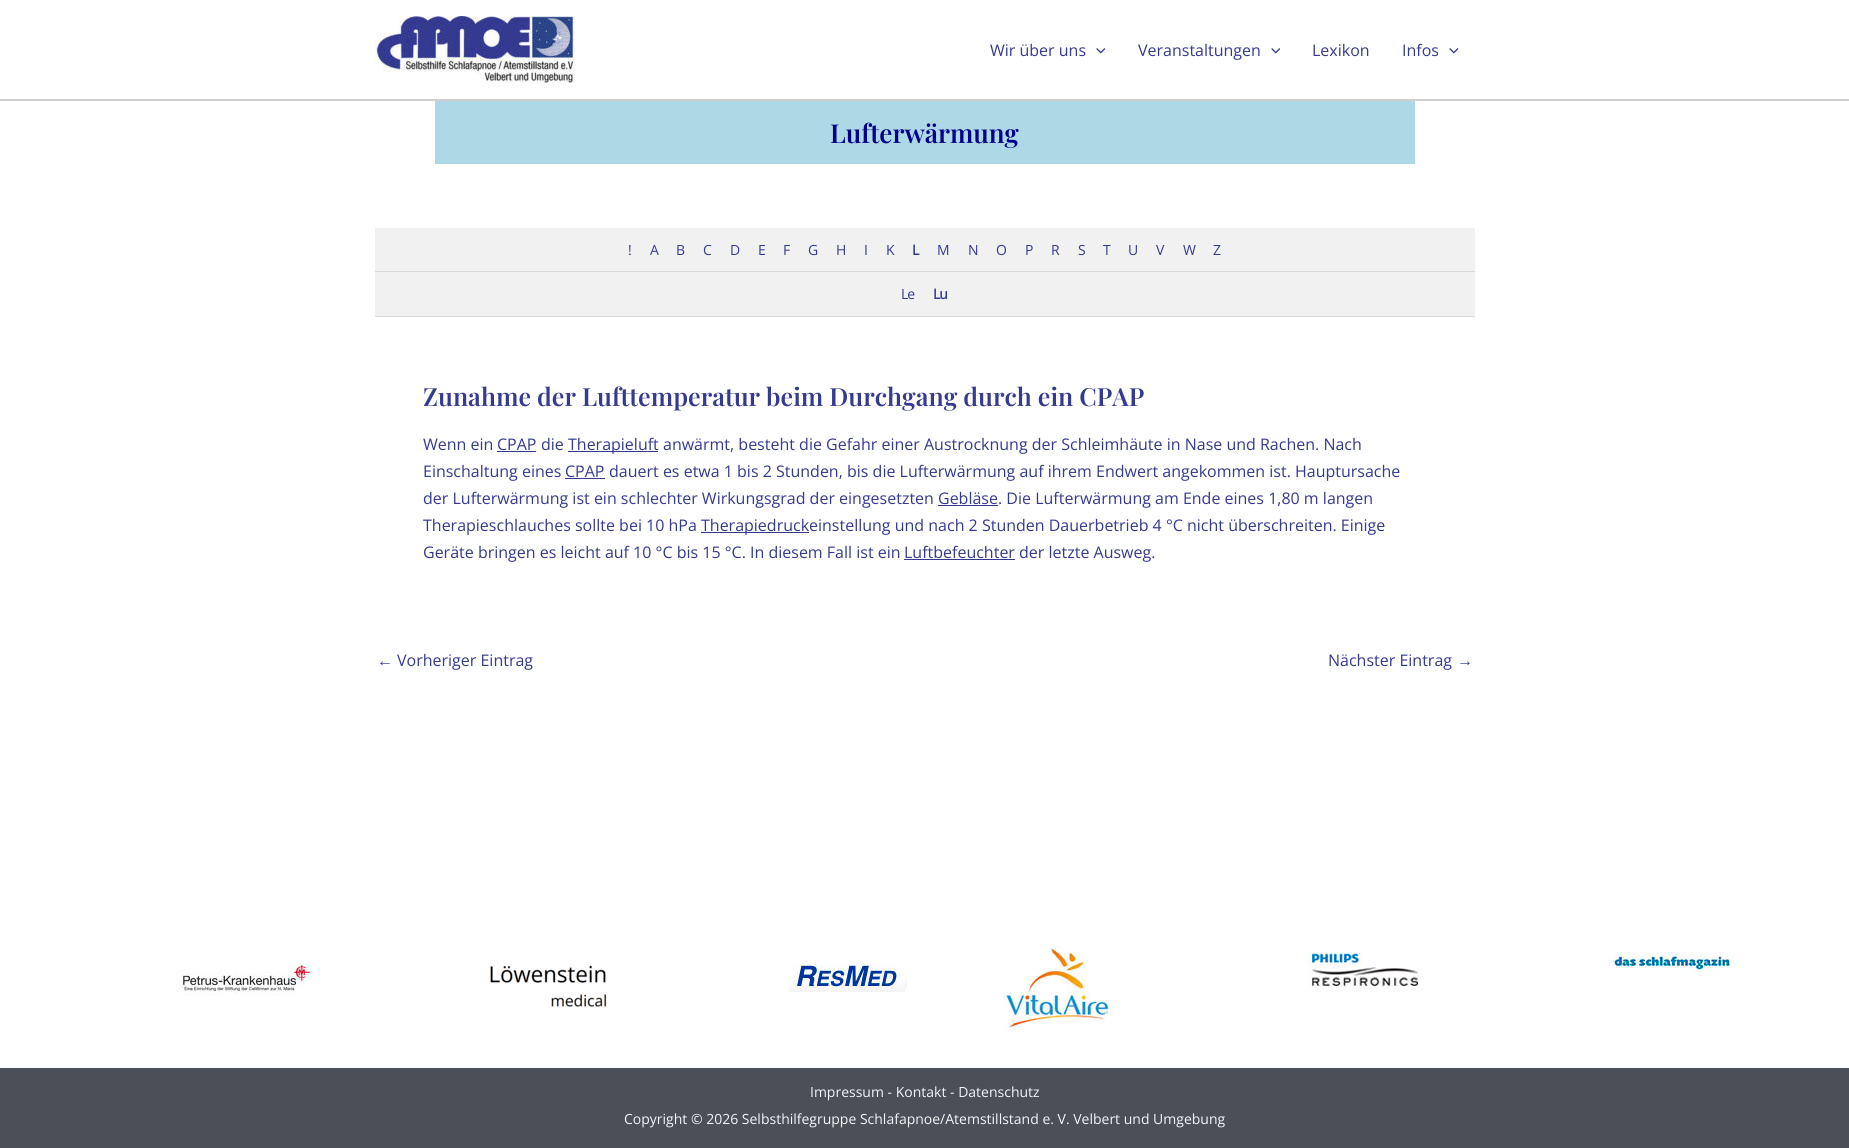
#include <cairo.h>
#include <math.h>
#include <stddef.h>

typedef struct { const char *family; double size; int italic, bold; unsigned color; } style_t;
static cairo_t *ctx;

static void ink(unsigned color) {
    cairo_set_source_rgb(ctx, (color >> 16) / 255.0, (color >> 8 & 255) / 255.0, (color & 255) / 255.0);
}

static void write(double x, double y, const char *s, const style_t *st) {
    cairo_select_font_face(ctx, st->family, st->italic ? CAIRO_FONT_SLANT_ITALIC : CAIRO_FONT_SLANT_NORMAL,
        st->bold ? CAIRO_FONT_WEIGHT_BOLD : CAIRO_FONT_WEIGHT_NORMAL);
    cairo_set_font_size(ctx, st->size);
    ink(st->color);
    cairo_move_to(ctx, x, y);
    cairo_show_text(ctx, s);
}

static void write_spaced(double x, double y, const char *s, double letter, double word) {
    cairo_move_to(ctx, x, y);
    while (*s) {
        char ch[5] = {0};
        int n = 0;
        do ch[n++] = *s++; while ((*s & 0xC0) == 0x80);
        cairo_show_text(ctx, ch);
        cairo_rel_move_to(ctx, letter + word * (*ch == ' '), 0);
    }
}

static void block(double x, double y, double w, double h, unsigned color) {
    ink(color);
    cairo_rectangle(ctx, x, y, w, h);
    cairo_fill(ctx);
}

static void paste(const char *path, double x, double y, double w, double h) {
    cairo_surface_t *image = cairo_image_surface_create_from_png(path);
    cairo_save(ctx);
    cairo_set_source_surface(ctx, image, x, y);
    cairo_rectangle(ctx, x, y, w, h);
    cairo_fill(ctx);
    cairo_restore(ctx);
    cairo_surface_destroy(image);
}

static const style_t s1 = {"Open Sans", 16, 0, 0, 0x343a90};
static const style_t s2 = {"Playfair Display SemiBold", 26, 0, 0, 0x00008b};
static const style_t s3 = {"Playfair Display SemiBold", 25, 0, 0, 0x343a90};
static const style_t s4 = {"Liberation Sans", 16, 0, 0, 0x343a90};
static const style_t s5 = {"Open Sans", 14, 0, 0, 0xf2f5f7};

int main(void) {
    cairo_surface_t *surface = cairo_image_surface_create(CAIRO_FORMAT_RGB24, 1849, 1148);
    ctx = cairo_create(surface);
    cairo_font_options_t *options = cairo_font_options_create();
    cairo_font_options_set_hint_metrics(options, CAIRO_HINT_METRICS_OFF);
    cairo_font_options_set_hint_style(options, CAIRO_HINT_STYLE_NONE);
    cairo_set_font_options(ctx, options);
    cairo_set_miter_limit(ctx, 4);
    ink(0xffffff);
    cairo_paint(ctx);
    block(0, 99, 1849, 2, 0xcfcfcf);
    paste("pic1.png", 375, 16, 200, 67);
    write(990, 56, "Wir über uns", &s1);
    paste("pic2.png", 1096, 48, 10, 6);
    write(1138, 56, "Veranstaltungen", &s1);
    paste("pic3.png", 1271, 48, 9, 6);
    write(1312, 56, "Lexikon", &s1);
    write(1402, 56, "Infos", &s1);
    paste("pic2.png", 1449, 48, 10, 6);
    block(435, 101, 980, 63, 0xadd8e6);
    write(830, 143, "Lufterwärmung", &s2);
    block(375, 228, 1100, 43, 0xf1f1f1);
    block(375, 271, 1100, 1, 0xd9d9d9);
    cairo_select_font_face(ctx, "Open Sans", CAIRO_FONT_SLANT_NORMAL, CAIRO_FONT_WEIGHT_NORMAL);
    cairo_set_font_size(ctx, 14);
    ink(0x343a90);
    write_spaced(628, 255, "!", -1, 0);
    write_spaced(650, 255, "A", -1, 0);
    write_spaced(676, 255, "B", -1, 0);
    write_spaced(703, 255, "C", -1, 0);
    write_spaced(730, 255, "D", -1, 0);
    write_spaced(758, 255, "E", -1, 0);
    write_spaced(783, 255, "F", -1, 0);
    write_spaced(808, 255, "G", -1, 0);
    write_spaced(836, 255, "H", -1, 0);
    write_spaced(864, 255, "I", -1, 0);
    write_spaced(886, 255, "K", -1, 0);
    cairo_select_font_face(ctx, "Open Sans", CAIRO_FONT_SLANT_NORMAL, CAIRO_FONT_WEIGHT_BOLD);
    write_spaced(912, 255, "L", -1, 0);
    cairo_select_font_face(ctx, "Open Sans", CAIRO_FONT_SLANT_NORMAL, CAIRO_FONT_WEIGHT_NORMAL);
    write_spaced(937, 255, "M", -1, 0);
    write_spaced(968, 255, "N", -1, 0);
    write_spaced(996, 255, "O", -1, 0);
    write_spaced(1025, 255, "P", -1, 0);
    write_spaced(1051, 255, "R", -1, 0);
    write_spaced(1078, 255, "S", -1, 0);
    write_spaced(1103, 255, "T", -1, 0);
    write_spaced(1128, 255, "U", -1, 0);
    write_spaced(1156, 255, "V", -1, 0);
    write_spaced(1183, 255, "W", -1, 0);
    write_spaced(1213, 255, "Z", -1, 0);
    block(375, 272, 1100, 44, 0xf1f1f1);
    block(375, 316, 1100, 1, 0xd9d9d9);
    ink(0x343a90);
    write_spaced(901, 299, "Le", -1, 0);
    cairo_select_font_face(ctx, "Open Sans", CAIRO_FONT_SLANT_NORMAL, CAIRO_FONT_WEIGHT_BOLD);
    write_spaced(933, 299, "Lu", -1, 0);
    write(423, 406, "Zunahme der Lufttemperatur beim Durchgang durch ein CPAP", &s3);
    write(423, 450, "Wenn ein", &s1);
    write(497, 450, "CPAP", &s1);
    block(497, 451, 39, 1, 0x33398f);
    write(541, 450, "die", &s1);
    block(568, 451, 90, 1, 0x33398f);
    write(568, 450, "Therapieluft", &s1);
    write(663, 450, "anwärmt, besteht die Gefahr einer Austrocknung der Schleimhäute in Nase und Rachen. Nach", &s1);
    write(423, 477, "Einschaltung eines", &s1);
    write(565, 477, "CPAP", &s1);
    block(565, 478, 40, 1, 0x33398f);
    write(609, 477, "dauert es etwa 1 bis 2 Stunden, bis die Lufterwärmung auf ihrem Endwert angekommen ist. Hauptursache", &s1);
    write(423, 504, "der Lufterwärmung ist ein schlechter Wirkungsgrad der eingesetzten", &s1);
    write(938, 504, "Gebläse", &s1);
    block(938, 505, 60, 1, 0x33398f);
    write(998, 504, ". Die Lufterwärmung am Ende eines 1,80 m langen", &s1);
    write(423, 531, "Therapieschlauches sollte bei 10 hPa", &s1);
    block(701, 532, 108, 1, 0x33398f);
    write(701, 531, "Therapiedruck", &s1);
    write(809, 531, "einstellung und nach 2 Stunden Dauerbetrieb 4 °C nicht überschreiten. Einige", &s1);
    write(423, 558, "Geräte bringen es leicht auf 10 °C bis 15 °C. In diesem Fall ist ein", &s1);
    write(904, 558, "Luftbefeuchter", &s1);
    block(904, 559, 111, 1, 0x33398f);
    write(1019, 558, "der letzte Ausweg.", &s1);
    write(377, 666, "←", &s4);
    write(397, 666, "Vorheriger Eintrag", &s1);
    write(1328, 666, "Nächster Eintrag", &s1);
    write(1457, 666, "→", &s4);
    paste("pic4.png", 176, 964, 136, 32);
    paste("pic5.png", 490, 965, 117, 42);
    paste("pic6.png", 789, 964, 118, 28);
    paste("pic7.png", 1003, 944, 112, 88);
    paste("pic8.png", 1307, 952, 112, 40);
    paste("pic9.png", 1607, 952, 128, 24);
    block(0, 1068, 1849, 80, 0x4b4f58);
    write(810, 1097, "Impressum - Kontakt - Datenschutz", &s5);
    write(624, 1124, "Copyright © 2026 Selbsthilfegruppe Schlafapnoe/Atemstillstand e. V. Velbert und Umgebung", &s5);
    cairo_surface_write_to_png(surface, "screenshot.png");
    cairo_font_options_destroy(options);
    cairo_destroy(ctx);
    cairo_surface_destroy(surface);
    return 0;
}
